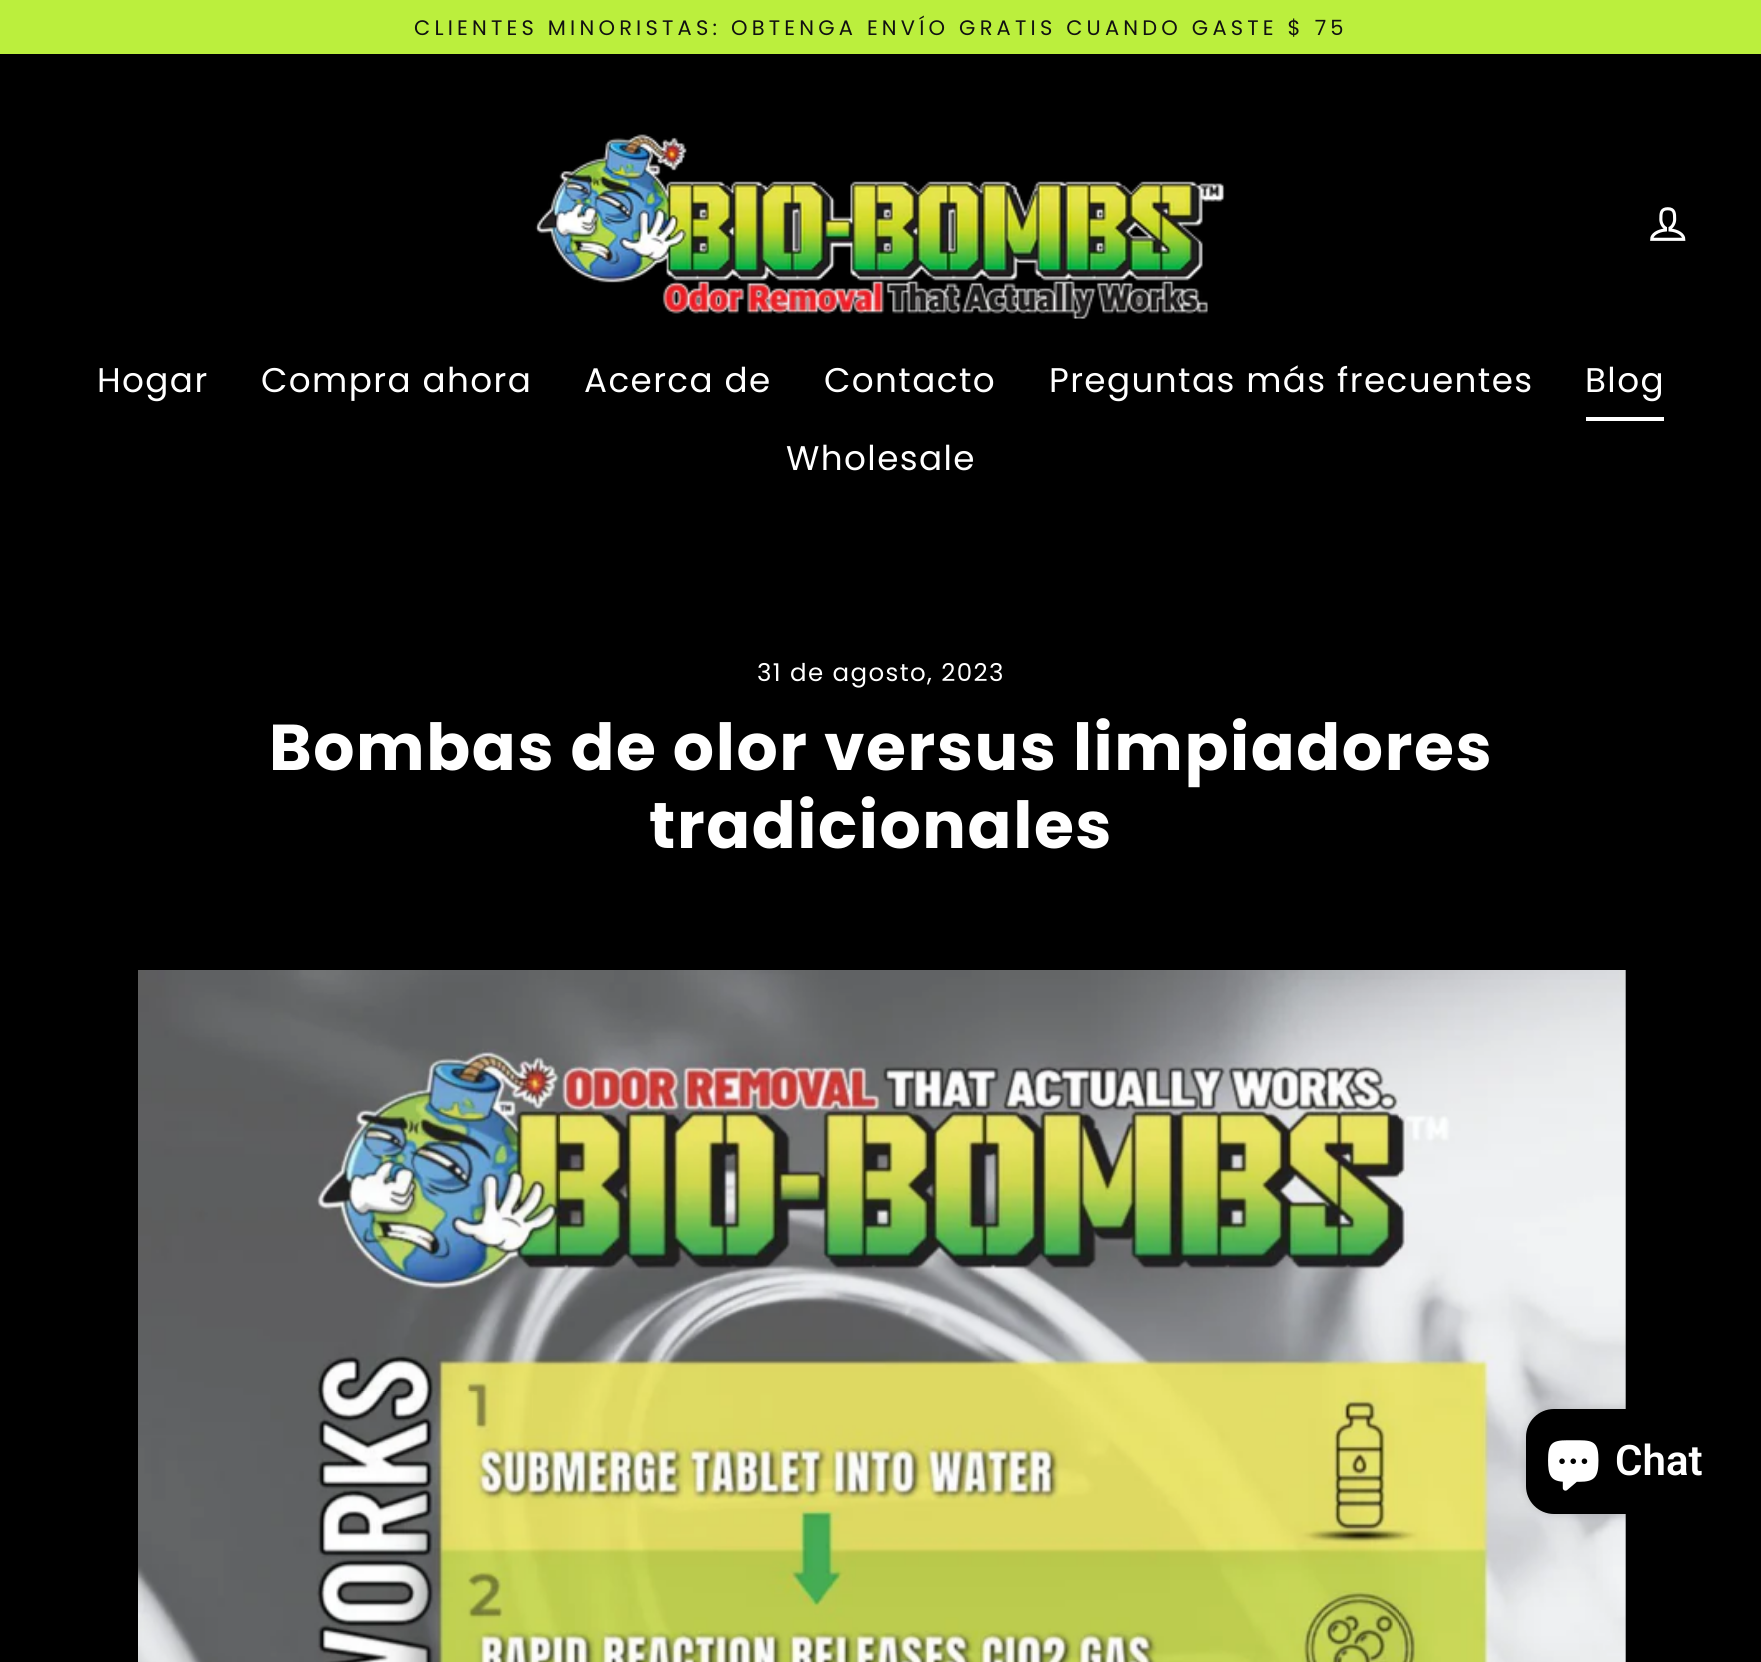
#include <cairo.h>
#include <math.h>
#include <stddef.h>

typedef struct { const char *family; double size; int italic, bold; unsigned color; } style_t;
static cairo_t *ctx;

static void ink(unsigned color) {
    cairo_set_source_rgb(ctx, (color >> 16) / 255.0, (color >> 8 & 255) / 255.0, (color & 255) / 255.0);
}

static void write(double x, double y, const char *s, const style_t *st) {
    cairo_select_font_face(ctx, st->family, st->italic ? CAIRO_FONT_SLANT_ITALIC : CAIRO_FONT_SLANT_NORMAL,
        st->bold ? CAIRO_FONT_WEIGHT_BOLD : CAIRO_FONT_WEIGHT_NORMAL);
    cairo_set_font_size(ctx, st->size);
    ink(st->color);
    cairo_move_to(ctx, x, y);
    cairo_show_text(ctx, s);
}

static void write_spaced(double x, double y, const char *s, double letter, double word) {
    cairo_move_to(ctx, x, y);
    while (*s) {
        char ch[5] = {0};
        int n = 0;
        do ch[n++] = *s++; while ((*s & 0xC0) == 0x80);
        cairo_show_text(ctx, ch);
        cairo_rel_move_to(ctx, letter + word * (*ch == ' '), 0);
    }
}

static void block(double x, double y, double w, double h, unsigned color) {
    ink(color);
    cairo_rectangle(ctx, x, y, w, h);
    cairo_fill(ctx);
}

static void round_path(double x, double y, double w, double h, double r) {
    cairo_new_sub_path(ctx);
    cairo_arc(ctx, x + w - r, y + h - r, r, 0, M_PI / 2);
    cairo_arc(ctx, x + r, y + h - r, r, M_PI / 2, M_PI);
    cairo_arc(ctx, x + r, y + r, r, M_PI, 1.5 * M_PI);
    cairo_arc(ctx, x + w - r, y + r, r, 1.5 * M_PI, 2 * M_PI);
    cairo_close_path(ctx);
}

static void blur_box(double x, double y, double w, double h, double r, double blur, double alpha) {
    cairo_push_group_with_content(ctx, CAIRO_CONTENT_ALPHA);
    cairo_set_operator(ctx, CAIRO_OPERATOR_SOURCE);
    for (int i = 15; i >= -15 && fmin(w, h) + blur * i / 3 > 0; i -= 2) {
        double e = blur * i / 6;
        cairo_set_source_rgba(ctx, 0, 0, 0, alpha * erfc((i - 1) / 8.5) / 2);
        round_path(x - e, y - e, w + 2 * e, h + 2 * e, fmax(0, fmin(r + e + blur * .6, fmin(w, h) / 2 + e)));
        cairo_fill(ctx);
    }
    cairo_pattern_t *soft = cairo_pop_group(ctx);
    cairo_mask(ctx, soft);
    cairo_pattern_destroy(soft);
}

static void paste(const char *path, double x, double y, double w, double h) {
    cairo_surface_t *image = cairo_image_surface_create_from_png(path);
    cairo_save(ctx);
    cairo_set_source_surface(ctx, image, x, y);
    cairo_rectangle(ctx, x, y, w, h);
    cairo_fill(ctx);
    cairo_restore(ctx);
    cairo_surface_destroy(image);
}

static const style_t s1 = {"Roboto SemiBold", 42, 0, 0, 0xffffff};

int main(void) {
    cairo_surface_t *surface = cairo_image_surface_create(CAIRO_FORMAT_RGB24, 1761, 1662);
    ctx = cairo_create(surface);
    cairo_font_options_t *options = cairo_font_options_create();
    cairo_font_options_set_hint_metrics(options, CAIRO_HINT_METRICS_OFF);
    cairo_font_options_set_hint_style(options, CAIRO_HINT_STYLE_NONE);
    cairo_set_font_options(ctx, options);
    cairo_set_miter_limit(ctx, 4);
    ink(0x000000);
    cairo_paint(ctx);
    block(0, 0, 1761, 54, 0xbbef3d);
    cairo_select_font_face(ctx, "Poppins", CAIRO_FONT_SLANT_NORMAL, CAIRO_FONT_WEIGHT_NORMAL);
    cairo_set_font_size(ctx, 21);
    ink(0x111111);
    write_spaced(414, 35, "CLIENTES MINORISTAS: OBTENGA ENVÍO GRATIS CUANDO GASTE $ 75", 4.2, 0);
    paste("pic1.png", 535, 134, 690, 185);
    paste("pic2.png", 1650, 207, 36, 34);
    cairo_set_font_size(ctx, 34.2);
    ink(0xffffff);
    write_spaced(97, 392, "Hogar", 1.4, 0);
    write_spaced(261, 392, "Compra ahora", 1.4, 0);
    write_spaced(584, 392, "Acerca de", 1.4, 0);
    write_spaced(824, 392, "Contacto", 1.4, 0);
    write_spaced(1049, 392, "Preguntas más frecuentes", 1.4, 0);
    write_spaced(1585, 392, "Blog", 1.4, 0);
    block(1586, 417, 78, 4, 0xffffff);
    write_spaced(786, 470, "Wholesale", 1.4, 0);
    cairo_set_font_size(ctx, 24.5);
    write_spaced(757, 681, "31 de agosto, 2023", 1.4, 0);
    cairo_select_font_face(ctx, "Poppins", CAIRO_FONT_SLANT_NORMAL, CAIRO_FONT_WEIGHT_BOLD);
    cairo_set_font_size(ctx, 64.75);
    write_spaced(269, 770, "Bombas de olor versus limpiadores", 1.6, 0);
    write_spaced(649, 848, "tradicionales", 1.6, 0);
    paste("pic3.png", 138, 970, 1488, 692);
    ink(0x000000);
    blur_box(1526, 1409, 198, 105, 28, 4.5, 0.15);
    ink(0x000000);
    round_path(1526, 1409, 198, 105, 28);
    cairo_fill(ctx);
    paste("pic4.png", 1548, 1440, 51, 51);
    write(1615, 1475, "Chat", &s1);
    cairo_surface_write_to_png(surface, "screenshot.png");
    cairo_font_options_destroy(options);
    cairo_destroy(ctx);
    cairo_surface_destroy(surface);
    return 0;
}
